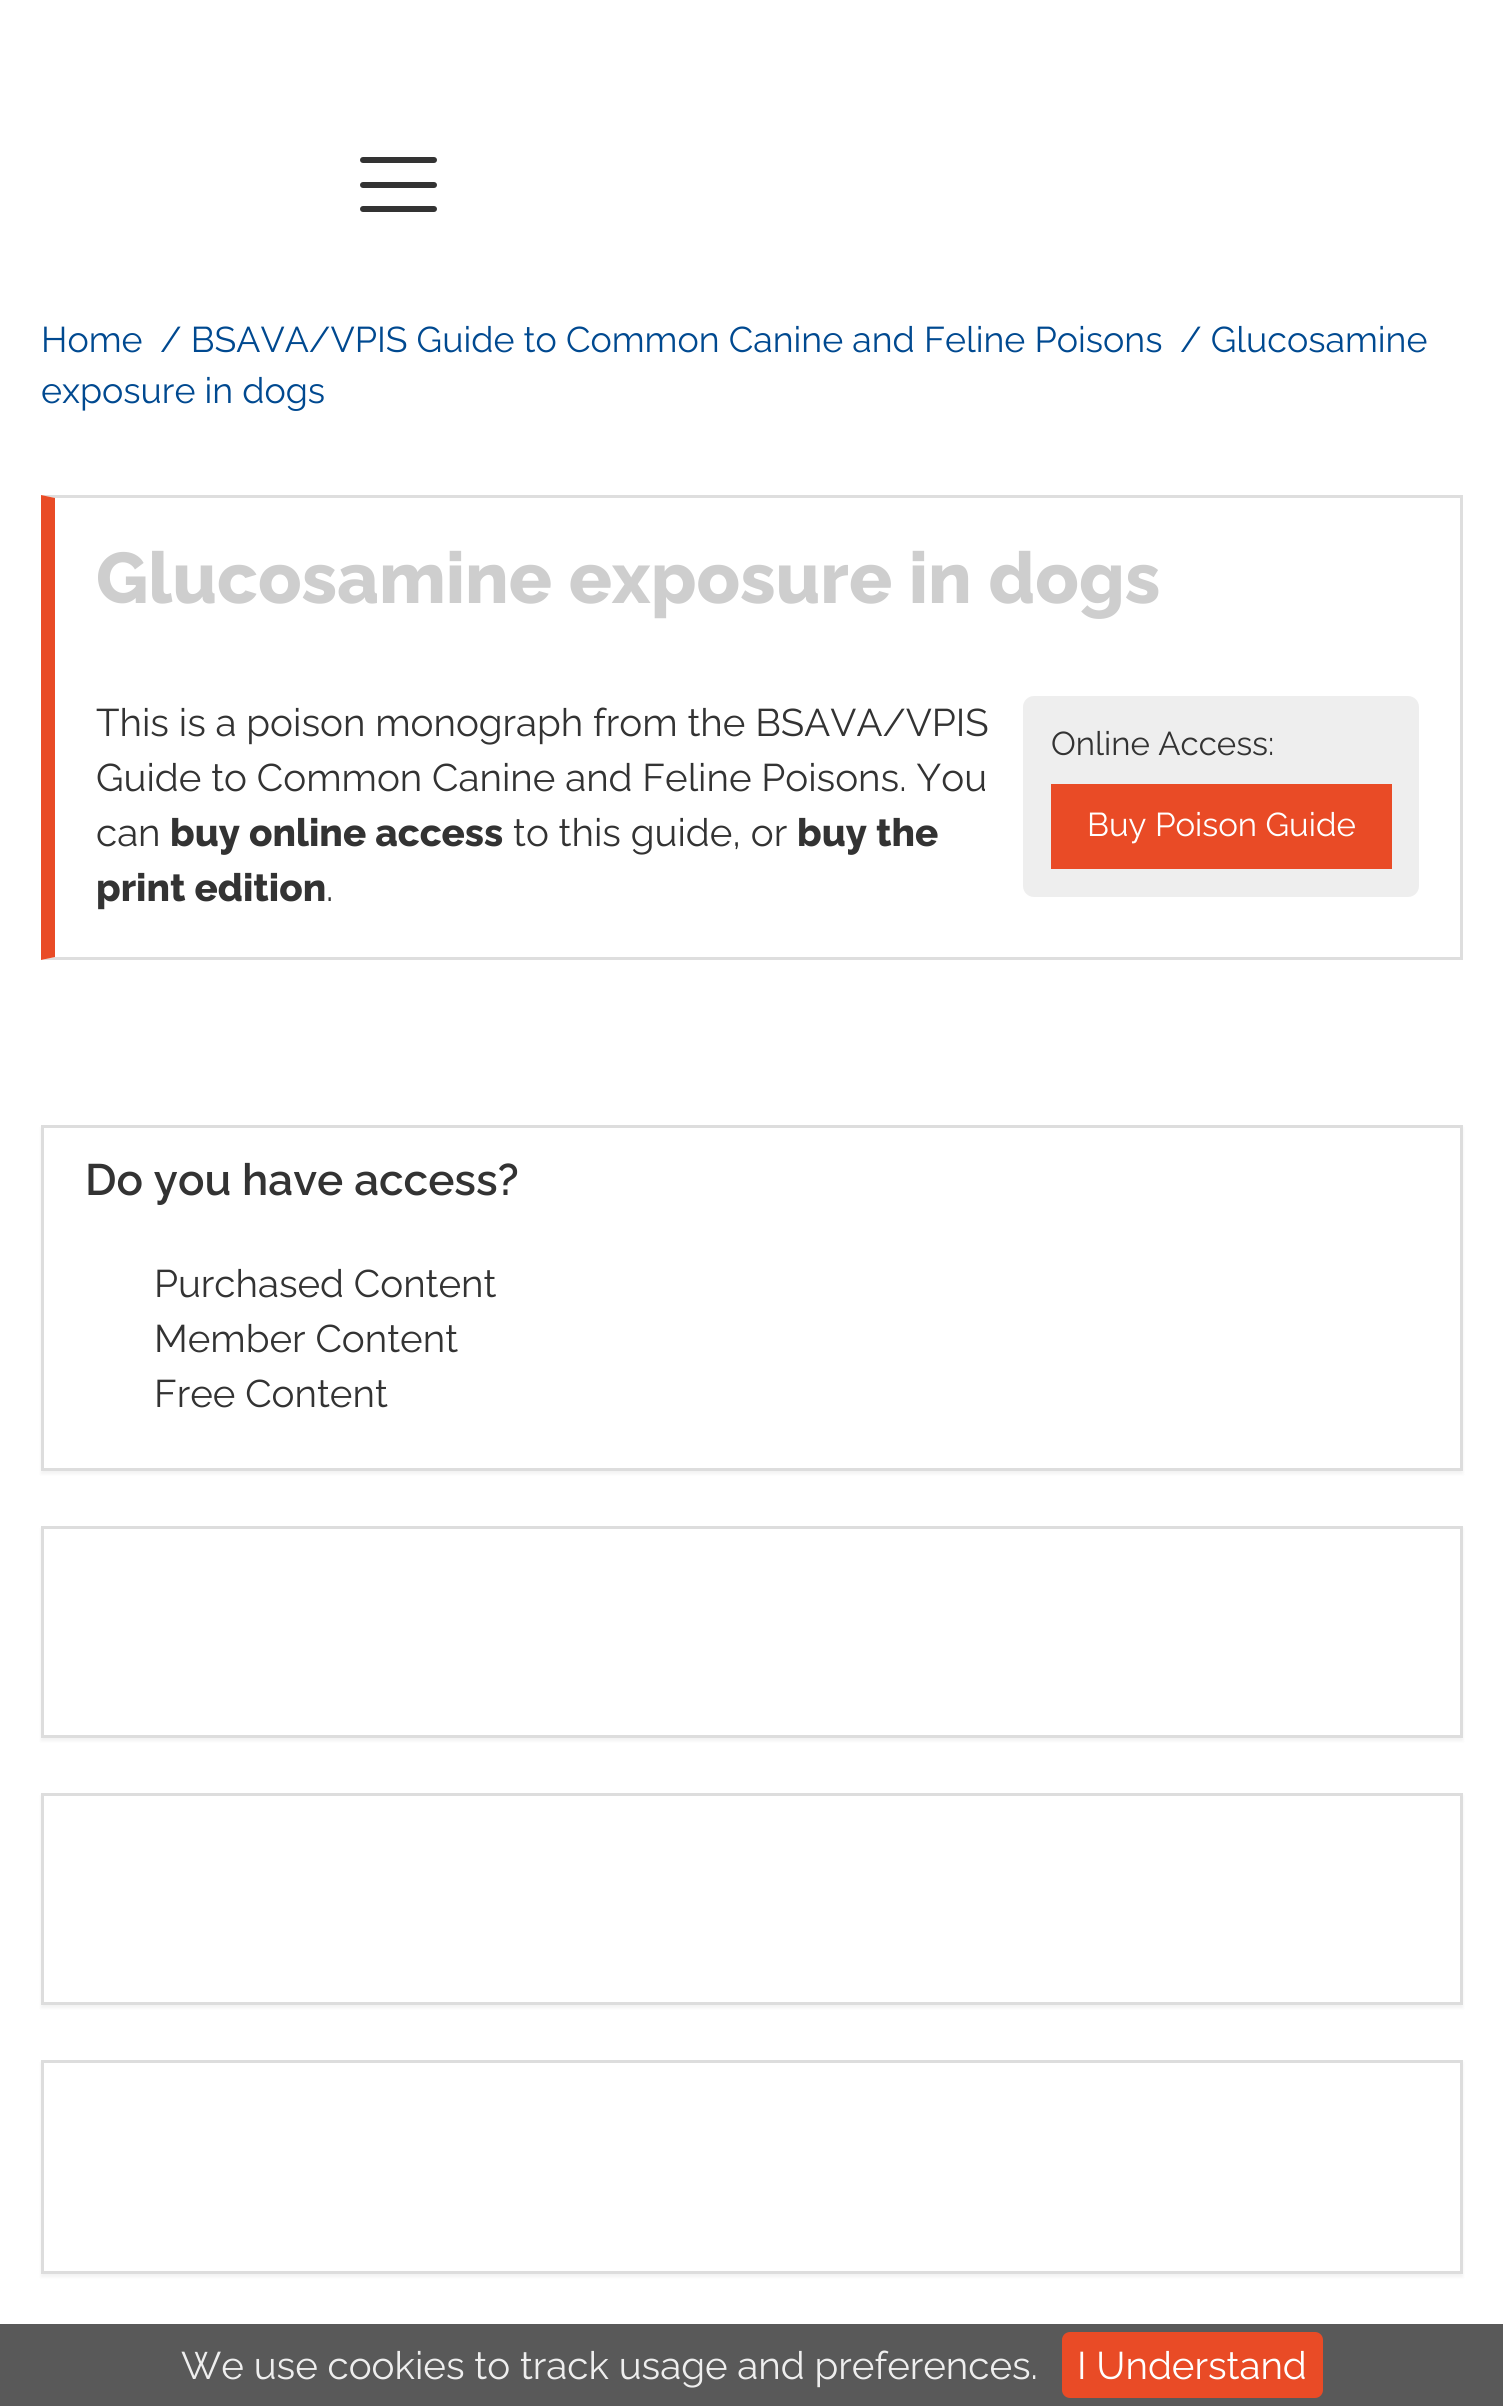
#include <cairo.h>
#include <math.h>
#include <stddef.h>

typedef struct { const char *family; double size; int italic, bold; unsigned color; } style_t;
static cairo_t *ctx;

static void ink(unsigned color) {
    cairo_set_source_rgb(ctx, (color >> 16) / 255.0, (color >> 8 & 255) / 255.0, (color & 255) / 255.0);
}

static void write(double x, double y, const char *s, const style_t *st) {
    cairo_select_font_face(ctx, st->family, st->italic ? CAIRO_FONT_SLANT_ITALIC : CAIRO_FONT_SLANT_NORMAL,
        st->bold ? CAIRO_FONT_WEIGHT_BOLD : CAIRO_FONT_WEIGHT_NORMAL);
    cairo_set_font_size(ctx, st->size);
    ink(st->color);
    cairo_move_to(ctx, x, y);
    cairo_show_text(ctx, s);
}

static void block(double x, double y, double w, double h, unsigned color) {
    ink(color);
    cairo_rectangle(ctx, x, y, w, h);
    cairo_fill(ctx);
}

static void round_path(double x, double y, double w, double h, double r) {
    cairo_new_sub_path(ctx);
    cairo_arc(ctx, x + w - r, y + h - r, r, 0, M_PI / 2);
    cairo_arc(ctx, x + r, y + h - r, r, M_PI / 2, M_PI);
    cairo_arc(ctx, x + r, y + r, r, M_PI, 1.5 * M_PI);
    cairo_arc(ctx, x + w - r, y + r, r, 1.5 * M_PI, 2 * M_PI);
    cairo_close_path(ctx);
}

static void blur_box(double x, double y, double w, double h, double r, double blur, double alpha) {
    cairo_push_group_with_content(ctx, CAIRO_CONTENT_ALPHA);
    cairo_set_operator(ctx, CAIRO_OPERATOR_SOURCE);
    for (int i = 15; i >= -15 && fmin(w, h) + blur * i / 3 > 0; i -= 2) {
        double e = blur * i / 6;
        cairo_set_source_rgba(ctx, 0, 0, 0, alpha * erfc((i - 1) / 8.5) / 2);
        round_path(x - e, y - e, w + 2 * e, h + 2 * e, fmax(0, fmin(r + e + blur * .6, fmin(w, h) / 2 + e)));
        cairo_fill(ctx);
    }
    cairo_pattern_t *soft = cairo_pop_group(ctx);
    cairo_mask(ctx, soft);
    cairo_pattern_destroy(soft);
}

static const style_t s1 = {"Raleway", 35.75, 0, 0, 0x004990};
static const style_t s2 = {"Raleway ExtraBold", 71.5, 0, 0, 0xcecece};
static const style_t s3 = {"Raleway", 38.5, 0, 0, 0x333333};
static const style_t s4 = {"Raleway ExtraBold", 38.5, 0, 0, 0x333333};
static const style_t s5 = {"Raleway", 33, 0, 0, 0x333333};
static const style_t s6 = {"Raleway", 33, 0, 0, 0xffffff};
static const style_t s7 = {"Raleway SemiBold", 44, 0, 0, 0x333333};
static const style_t s8 = {"Raleway", 38.5, 0, 0, 0xeeeeee};
static const style_t s9 = {"Raleway", 38.5, 0, 0, 0xffffff};

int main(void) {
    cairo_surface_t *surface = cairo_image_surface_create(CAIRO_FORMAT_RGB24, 1503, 2406);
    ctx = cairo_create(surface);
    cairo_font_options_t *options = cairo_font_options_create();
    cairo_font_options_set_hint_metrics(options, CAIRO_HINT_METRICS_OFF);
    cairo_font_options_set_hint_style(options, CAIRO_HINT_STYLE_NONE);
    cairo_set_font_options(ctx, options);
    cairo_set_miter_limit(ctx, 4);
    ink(0xffffff);
    cairo_paint(ctx);
    ink(0x333333);
    round_path(360, 157, 77, 6, 3);
    cairo_fill(ctx);
    round_path(360, 182, 77, 6, 3);
    cairo_fill(ctx);
    round_path(360, 206, 77, 6, 3);
    cairo_fill(ctx);
    write(41, 352, "Home", &s1);
    write(160, 352, "/ BSAVA/VPIS Guide to Common Canine and Feline Poisons", &s1);
    write(1180, 352, "/ Glucosamine", &s1);
    write(41, 403, "exposure in dogs", &s1);
    ink(0xdedede);
    cairo_new_path(ctx);
    cairo_move_to(ctx, 41, 495);
    cairo_line_to(ctx, 1463, 495);
    cairo_line_to(ctx, 1460, 498);
    cairo_line_to(ctx, 55, 498);
    cairo_close_path(ctx);
    cairo_fill(ctx);
    block(1460, 495, 3, 465, 0xdedede);
    cairo_new_path(ctx);
    cairo_move_to(ctx, 1463, 960);
    cairo_line_to(ctx, 41, 960);
    cairo_line_to(ctx, 55, 957);
    cairo_line_to(ctx, 1460, 957);
    cairo_close_path(ctx);
    cairo_fill(ctx);
    ink(0xe94b26);
    cairo_new_path(ctx);
    cairo_move_to(ctx, 41, 960);
    cairo_line_to(ctx, 41, 495);
    cairo_line_to(ctx, 55, 498);
    cairo_line_to(ctx, 55, 957);
    cairo_close_path(ctx);
    cairo_fill(ctx);
    write(96, 603, "Glucosamine exposure in dogs", &s2);
    write(96, 736, "This is a poison monograph from the BSAVA/VPIS", &s3);
    write(96, 791, "Guide to Common Canine and Feline Poisons. You", &s3);
    write(96, 846, "can", &s3);
    write(170, 846, "buy online access", &s4);
    write(513, 846, "to this guide, or", &s3);
    write(797, 846, "buy the", &s4);
    write(96, 901, "print edition", &s4);
    write(326, 901, ".", &s3);
    ink(0xeeeeee);
    round_path(1023, 696, 396, 201, 11);
    cairo_fill(ctx);
    write(1051, 755, "Online Access:", &s5);
    block(1051, 784, 341, 85, 0xe94b26);
    write(1087, 836, "Buy Poison Guide", &s6);
    ink(0x000000);
    blur_box(41, 1128, 1422, 346, 0, 1.5, 0.05);
    ink(0xffffff);
    cairo_rectangle(ctx, 42.5, 1126.5, 1419, 343);
    cairo_fill_preserve(ctx);
    ink(0xdddddd);
    cairo_set_line_width(ctx, 3);
    cairo_stroke(ctx);
    write(85, 1195, "Do you have access?", &s7);
    write(154, 1297, "Purchased Content", &s3);
    write(154, 1352, "Member Content", &s3);
    write(154, 1407, "Free Content", &s3);
    ink(0x000000);
    blur_box(41, 1529, 1422, 212, 0, 1.5, 0.05);
    ink(0xffffff);
    cairo_rectangle(ctx, 42.5, 1527.5, 1419, 209);
    cairo_fill_preserve(ctx);
    ink(0xdddddd);
    cairo_stroke(ctx);
    ink(0x000000);
    blur_box(41, 1796, 1422, 212, 0, 1.5, 0.05);
    ink(0xffffff);
    cairo_rectangle(ctx, 42.5, 1794.5, 1419, 209);
    cairo_fill_preserve(ctx);
    ink(0xdddddd);
    cairo_stroke(ctx);
    ink(0x000000);
    blur_box(41, 2063, 1422, 214, 0, 1.5, 0.05);
    ink(0xffffff);
    cairo_rectangle(ctx, 42.5, 2061.5, 1419, 211);
    cairo_fill_preserve(ctx);
    ink(0xdddddd);
    cairo_stroke(ctx);
    block(0, 2324, 1503, 82, 0x595959);
    write(181, 2379, "We use cookies to track usage and preferences.", &s8);
    ink(0xe94b26);
    round_path(1062, 2332, 261, 66, 8);
    cairo_fill(ctx);
    write(1077, 2379, "I Understand", &s9);
    cairo_surface_write_to_png(surface, "screenshot.png");
    cairo_font_options_destroy(options);
    cairo_destroy(ctx);
    cairo_surface_destroy(surface);
    return 0;
}
